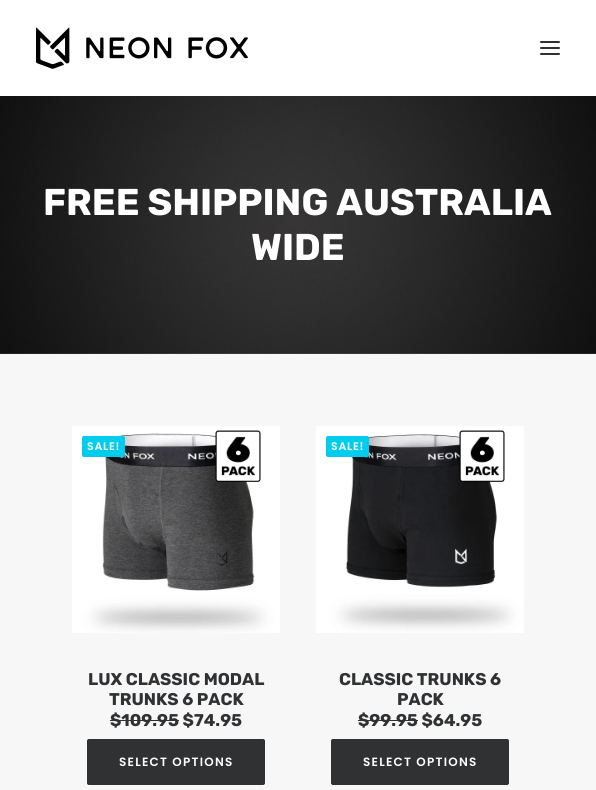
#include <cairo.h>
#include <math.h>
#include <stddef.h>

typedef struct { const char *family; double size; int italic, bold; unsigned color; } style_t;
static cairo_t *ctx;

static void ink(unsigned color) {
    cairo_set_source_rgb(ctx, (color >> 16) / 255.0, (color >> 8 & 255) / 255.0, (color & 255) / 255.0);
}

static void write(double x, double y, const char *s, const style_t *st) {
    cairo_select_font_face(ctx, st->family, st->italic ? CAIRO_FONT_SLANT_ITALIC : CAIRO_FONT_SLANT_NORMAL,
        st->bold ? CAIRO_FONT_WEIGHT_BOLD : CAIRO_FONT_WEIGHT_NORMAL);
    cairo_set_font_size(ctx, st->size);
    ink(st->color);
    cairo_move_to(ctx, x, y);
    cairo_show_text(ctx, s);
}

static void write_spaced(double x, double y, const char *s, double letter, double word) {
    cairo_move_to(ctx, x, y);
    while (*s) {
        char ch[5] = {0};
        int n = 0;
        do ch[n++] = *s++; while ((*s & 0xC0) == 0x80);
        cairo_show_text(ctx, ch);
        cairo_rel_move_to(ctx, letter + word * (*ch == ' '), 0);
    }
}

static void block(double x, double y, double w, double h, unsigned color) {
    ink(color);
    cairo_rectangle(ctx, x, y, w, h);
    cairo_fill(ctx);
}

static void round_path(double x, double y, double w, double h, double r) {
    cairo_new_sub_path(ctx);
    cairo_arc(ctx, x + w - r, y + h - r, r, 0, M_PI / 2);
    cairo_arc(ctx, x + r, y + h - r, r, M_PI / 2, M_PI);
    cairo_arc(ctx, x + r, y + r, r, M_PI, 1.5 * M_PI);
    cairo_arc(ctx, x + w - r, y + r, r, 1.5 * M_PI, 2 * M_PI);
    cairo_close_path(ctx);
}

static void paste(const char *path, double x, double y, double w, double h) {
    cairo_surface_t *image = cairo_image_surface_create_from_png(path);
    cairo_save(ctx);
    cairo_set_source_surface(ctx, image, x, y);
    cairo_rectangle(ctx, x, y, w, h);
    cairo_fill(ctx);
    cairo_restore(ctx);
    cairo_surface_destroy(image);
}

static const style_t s1 = {"Rubik", 37.3, 0, 1, 0xffffff};
static const style_t s2 = {"Rubik", 17, 0, 1, 0x303133};

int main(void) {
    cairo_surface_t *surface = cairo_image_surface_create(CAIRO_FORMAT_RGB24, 596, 790);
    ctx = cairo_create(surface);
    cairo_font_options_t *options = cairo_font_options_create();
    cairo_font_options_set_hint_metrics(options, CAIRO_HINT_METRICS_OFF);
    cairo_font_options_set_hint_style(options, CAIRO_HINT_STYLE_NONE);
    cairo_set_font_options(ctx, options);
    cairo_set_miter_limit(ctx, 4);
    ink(0xffffff);
    cairo_paint(ctx);
    paste("pic1.png", 36, 27, 212, 42);
    ink(0x303133);
    round_path(540, 47, 20, 2, 1);
    cairo_fill(ctx);
    round_path(540, 41, 20, 2, 1);
    cairo_fill(ctx);
    round_path(540, 53, 20, 2, 1);
    cairo_fill(ctx);
    paste("pic2.png", 0, 96, 596, 258);
    write(43, 215, "FREE SHIPPING AUSTRALIA", &s1);
    write(251, 260, "WIDE", &s1);
    block(0, 354, 596, 436, 0xf7f7f7);
    paste("pic3.png", 72, 426, 208, 207);
    ink(0x00cded);
    round_path(82, 436, 43, 21, 2);
    cairo_fill(ctx);
    cairo_select_font_face(ctx, "Poppins SemiBold", CAIRO_FONT_SLANT_NORMAL, CAIRO_FONT_WEIGHT_NORMAL);
    cairo_set_font_size(ctx, 11);
    ink(0xffffff);
    write_spaced(87, 450, "SALE!", 0.75, 0);
    write(88, 685, "LUX CLASSIC MODAL", &s2);
    write(109, 705, "TRUNKS 6 PACK", &s2);
    write(110, 726, "$109.95 $74.95", &s2);
    block(110, 720, 69, 1, 0x303133);
    round_path(87.5, 739.5, 177, 45, 1.5);
    cairo_fill_preserve(ctx);
    cairo_set_line_width(ctx, 1);
    cairo_stroke(ctx);
    cairo_select_font_face(ctx, "Poppins SemiBold", CAIRO_FONT_SLANT_NORMAL, CAIRO_FONT_WEIGHT_NORMAL);
    cairo_set_font_size(ctx, 12);
    ink(0xffffff);
    write_spaced(119, 766, "SELECT OPTIONS", 1.25, 0);
    paste("pic4.png", 316, 426, 208, 207);
    ink(0x00cded);
    round_path(326, 436, 43, 21, 2);
    cairo_fill(ctx);
    cairo_set_font_size(ctx, 11);
    ink(0xffffff);
    write_spaced(331, 450, "SALE!", 0.75, 0);
    write(339, 685, "CLASSIC TRUNKS 6", &s2);
    write(397, 705, "PACK", &s2);
    write(358, 726, "$99.95 $64.95", &s2);
    block(358, 720, 60, 1, 0x303133);
    round_path(331.5, 739.5, 177, 45, 1.5);
    cairo_fill_preserve(ctx);
    cairo_stroke(ctx);
    cairo_select_font_face(ctx, "Poppins SemiBold", CAIRO_FONT_SLANT_NORMAL, CAIRO_FONT_WEIGHT_NORMAL);
    cairo_set_font_size(ctx, 12);
    ink(0xffffff);
    write_spaced(363, 766, "SELECT OPTIONS", 1.25, 0);
    cairo_surface_write_to_png(surface, "screenshot.png");
    cairo_font_options_destroy(options);
    cairo_destroy(ctx);
    cairo_surface_destroy(surface);
    return 0;
}
